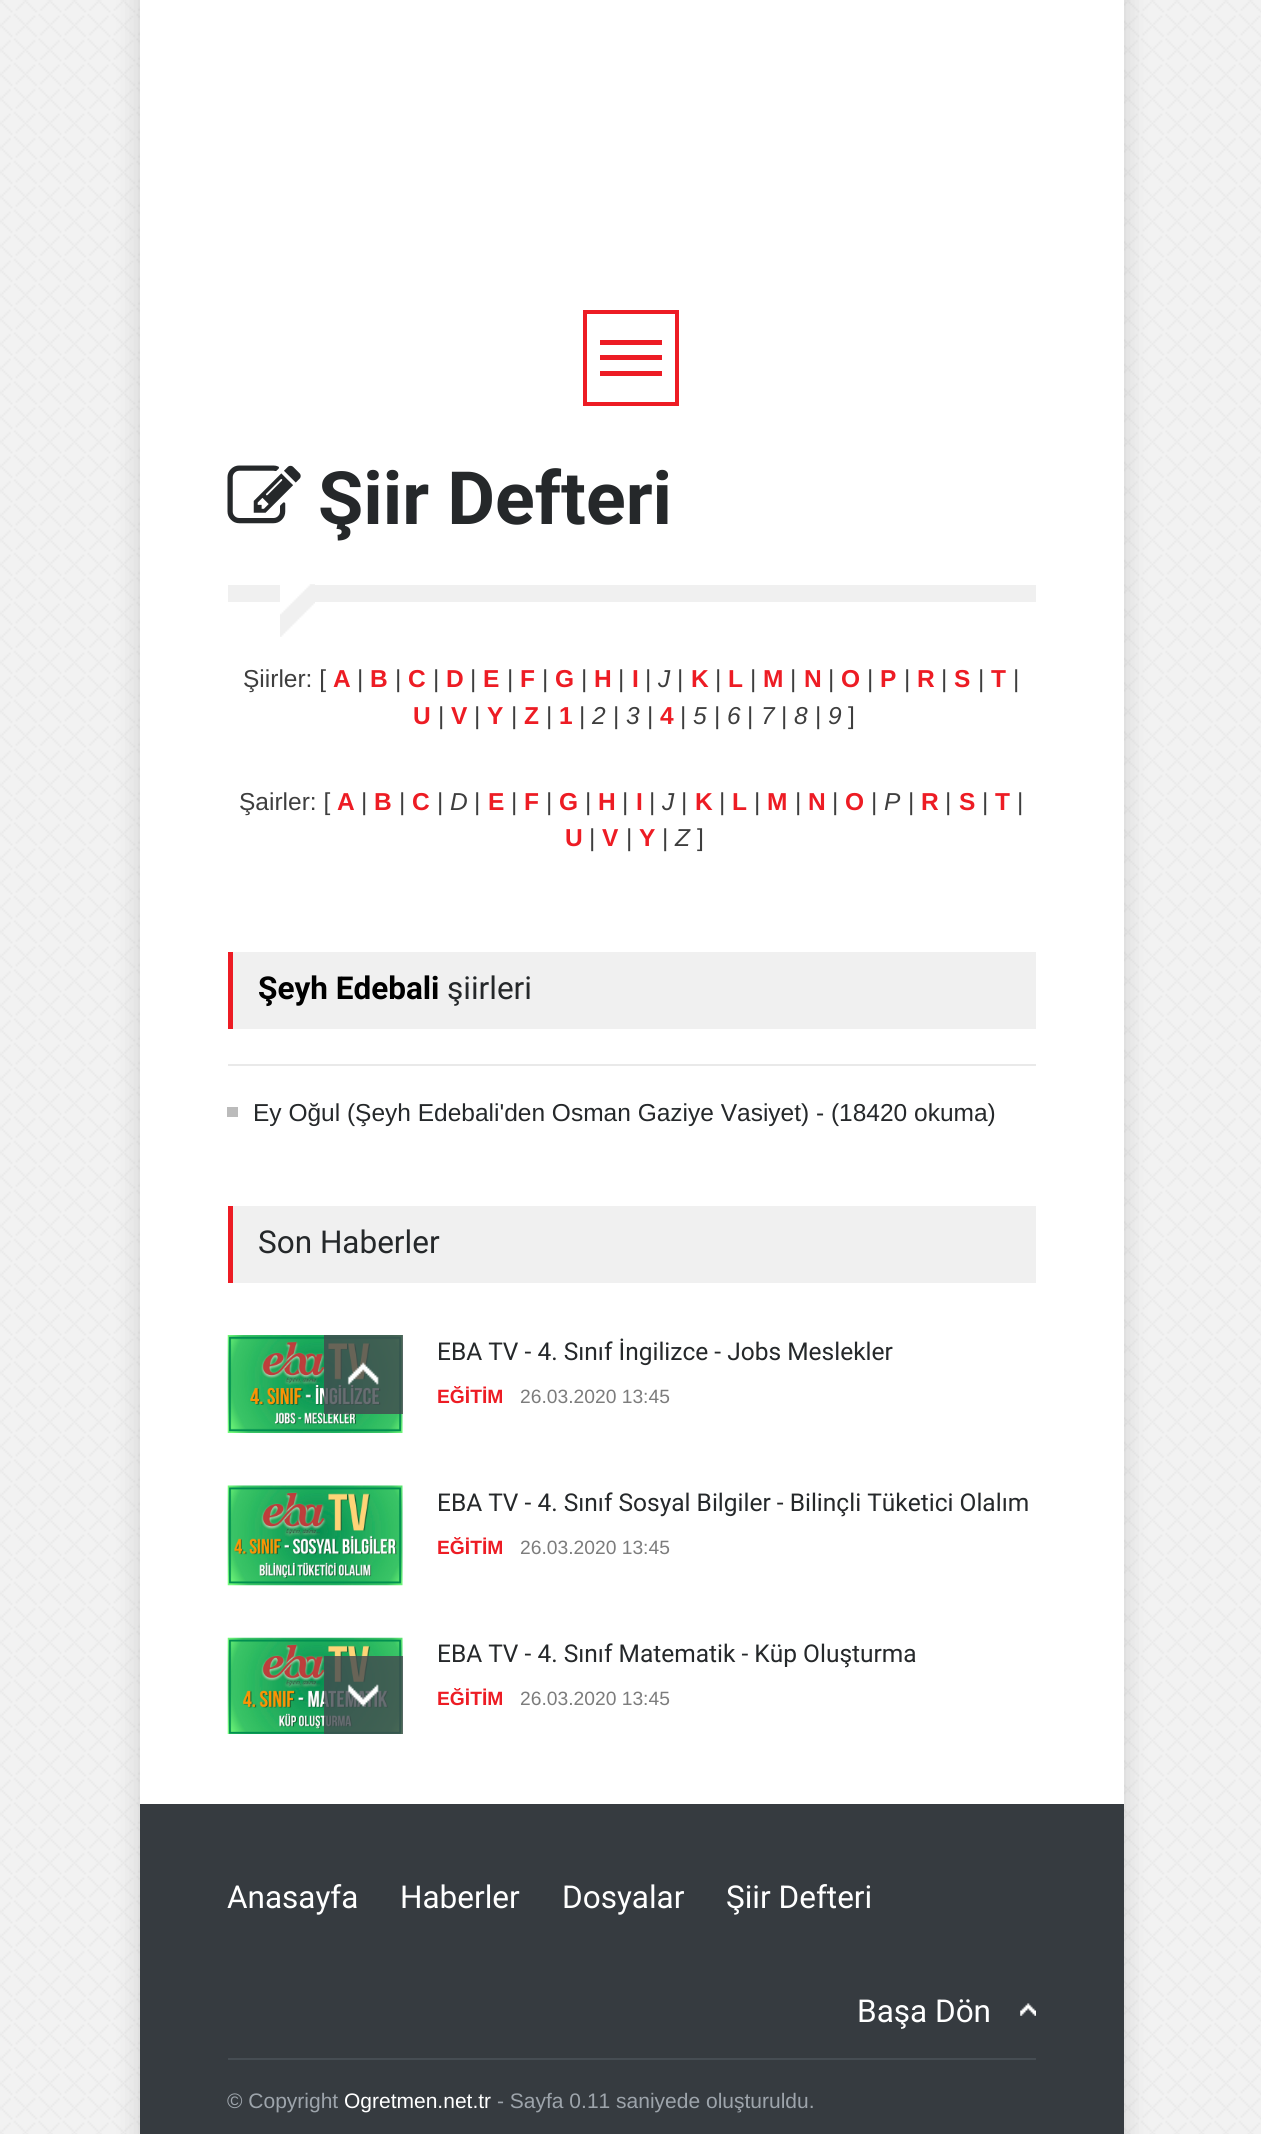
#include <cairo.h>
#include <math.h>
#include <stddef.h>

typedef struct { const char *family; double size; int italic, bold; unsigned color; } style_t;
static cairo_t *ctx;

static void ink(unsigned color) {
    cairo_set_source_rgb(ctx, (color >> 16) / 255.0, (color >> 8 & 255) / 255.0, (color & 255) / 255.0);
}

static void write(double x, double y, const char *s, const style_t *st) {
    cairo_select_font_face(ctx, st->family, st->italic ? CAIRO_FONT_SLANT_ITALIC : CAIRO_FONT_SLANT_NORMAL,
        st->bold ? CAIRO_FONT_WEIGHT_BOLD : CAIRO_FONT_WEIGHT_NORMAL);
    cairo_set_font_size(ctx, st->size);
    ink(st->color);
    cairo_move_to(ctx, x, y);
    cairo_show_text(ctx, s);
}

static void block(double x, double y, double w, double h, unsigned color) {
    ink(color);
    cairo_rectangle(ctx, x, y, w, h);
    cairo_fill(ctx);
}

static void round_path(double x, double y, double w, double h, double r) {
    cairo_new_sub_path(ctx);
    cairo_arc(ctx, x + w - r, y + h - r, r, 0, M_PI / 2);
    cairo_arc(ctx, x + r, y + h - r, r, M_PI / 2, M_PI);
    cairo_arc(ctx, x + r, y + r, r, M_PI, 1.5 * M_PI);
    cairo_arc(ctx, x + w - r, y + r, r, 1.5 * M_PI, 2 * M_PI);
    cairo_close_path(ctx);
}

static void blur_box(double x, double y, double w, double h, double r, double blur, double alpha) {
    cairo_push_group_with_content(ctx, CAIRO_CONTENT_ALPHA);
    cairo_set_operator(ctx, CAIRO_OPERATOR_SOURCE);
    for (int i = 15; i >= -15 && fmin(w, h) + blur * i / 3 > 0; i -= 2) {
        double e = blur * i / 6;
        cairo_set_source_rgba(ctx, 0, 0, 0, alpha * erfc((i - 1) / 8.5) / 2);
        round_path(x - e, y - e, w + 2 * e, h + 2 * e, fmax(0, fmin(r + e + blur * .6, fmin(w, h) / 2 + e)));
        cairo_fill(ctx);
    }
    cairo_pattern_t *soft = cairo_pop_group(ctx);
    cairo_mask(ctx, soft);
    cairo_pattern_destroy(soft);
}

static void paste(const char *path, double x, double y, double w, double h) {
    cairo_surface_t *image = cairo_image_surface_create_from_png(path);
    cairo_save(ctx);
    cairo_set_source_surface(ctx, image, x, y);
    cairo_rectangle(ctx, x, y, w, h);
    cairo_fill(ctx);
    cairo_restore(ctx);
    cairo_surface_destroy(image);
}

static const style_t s1 = {"Roboto", 73.5, 0, 1, 0x25282a};
static const style_t s2 = {"Liberation Sans", 24.5, 0, 0, 0x3e3e3e};
static const style_t s3 = {"Liberation Sans", 24.5, 0, 1, 0xed1c24};
static const style_t s4 = {"Liberation Sans", 24.5, 1, 0, 0x3e3e3e};
static const style_t s5 = {"Roboto", 31.5, 0, 1, 0x000000};
static const style_t s6 = {"Roboto", 31.5, 0, 0, 0x25282a};
static const style_t s7 = {"Liberation Sans", 24.5, 0, 0, 0x25282a};
static const style_t s8 = {"Roboto", 24.5, 0, 0, 0x25282a};
static const style_t s9 = {"Liberation Sans", 19.25, 0, 1, 0xed1c24};
static const style_t s10 = {"Liberation Sans", 19.25, 0, 0, 0x7c7c7c};
static const style_t s11 = {"Roboto", 31.5, 0, 0, 0xffffff};
static const style_t s12 = {"Liberation Sans", 21, 0, 0, 0x9da4ab};
static const style_t s13 = {"Liberation Sans", 21, 0, 0, 0xffffff};

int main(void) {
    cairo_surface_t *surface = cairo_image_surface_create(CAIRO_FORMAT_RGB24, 1261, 2134);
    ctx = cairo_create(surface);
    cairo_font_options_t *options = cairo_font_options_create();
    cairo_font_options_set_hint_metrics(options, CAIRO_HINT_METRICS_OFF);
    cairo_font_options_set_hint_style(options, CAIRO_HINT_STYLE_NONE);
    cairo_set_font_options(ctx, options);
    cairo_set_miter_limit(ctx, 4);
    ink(0xffffff);
    cairo_paint(ctx);
    paste("pic1.png", 0, 0, 1261, 2134);
    ink(0x000000);
    blur_box(140, -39, 984, 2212, 0, 13, 0.15);
    block(140, 0, 984, 1804, 0xffffff);
    cairo_rectangle(ctx, 585, 312, 92, 92);
    ink(0xed1c24);
    cairo_set_line_width(ctx, 4);
    cairo_stroke(ctx);
    block(600, 340, 62, 5, 0xed1c24);
    block(600, 355, 62, 5, 0xed1c24);
    block(600, 371, 62, 5, 0xed1c24);
    paste("pic2.png", 227, 465, 74, 59);
    write(318, 524, "Şiir Defteri", &s1);
    block(228, 585, 52, 17, 0xf0f0f0);
    paste("pic3.png", 280, 584, 35, 53);
    block(315, 585, 721, 17, 0xf0f0f0);
    write(243, 687, "Şiirler: [", &s2);
    write(333, 687, "A", &s3);
    write(357, 687, "|", &s2);
    write(370, 687, "B", &s3);
    write(395, 687, "|", &s2);
    write(408, 687, "C", &s3);
    write(433, 687, "|", &s2);
    write(446, 687, "D", &s3);
    write(470, 687, "|", &s2);
    write(483, 687, "E", &s3);
    write(507, 687, "|", &s2);
    write(520, 687, "F", &s3);
    write(542, 687, "|", &s2);
    write(555, 687, "G", &s3);
    write(581, 687, "|", &s2);
    write(594, 687, "H", &s3);
    write(618, 687, "|", &s2);
    write(632, 687, "I", &s3);
    write(645, 687, "|", &s2);
    write(658, 687, "J", &s4);
    write(677, 687, "|", &s2);
    write(691, 687, "K", &s3);
    write(715, 687, "|", &s2);
    write(728, 687, "L", &s3);
    write(750, 687, "|", &s2);
    write(763, 687, "M", &s3);
    write(790, 687, "|", &s2);
    write(804, 687, "N", &s3);
    write(828, 687, "|", &s2);
    write(841, 687, "O", &s3);
    write(867, 687, "|", &s2);
    write(880, 687, "P", &s3);
    write(904, 687, "|", &s2);
    write(917, 687, "R", &s3);
    write(941, 687, "|", &s2);
    write(954, 687, "S", &s3);
    write(978, 687, "|", &s2);
    write(991, 687, "T", &s3);
    write(1013, 687, "|", &s2);
    write(413, 724, "U", &s3);
    write(438, 724, "|", &s2);
    write(451, 724, "V", &s3);
    write(474, 724, "|", &s2);
    write(487, 724, "Y", &s3);
    write(511, 724, "|", &s2);
    write(524, 724, "Z", &s3);
    write(546, 724, "|", &s2);
    write(559, 724, "1", &s3);
    write(579, 724, "|", &s2);
    write(592, 724, "2", &s4);
    write(613, 724, "|", &s2);
    write(626, 724, "3", &s4);
    write(647, 724, "|", &s2);
    write(660, 724, "4", &s3);
    write(680, 724, "|", &s2);
    write(693, 724, "5", &s4);
    write(714, 724, "|", &s2);
    write(727, 724, "6", &s4);
    write(747, 724, "|", &s2);
    write(761, 724, "7", &s4);
    write(781, 724, "|", &s2);
    write(794, 724, "8", &s4);
    write(815, 724, "|", &s2);
    write(828, 724, "9", &s4);
    write(848, 724, "]", &s2);
    write(239, 810, "Şairler: [", &s2);
    write(337, 810, "A", &s3);
    write(361, 810, "|", &s2);
    write(374, 810, "B", &s3);
    write(399, 810, "|", &s2);
    write(412, 810, "C", &s3);
    write(437, 810, "|", &s2);
    write(450, 810, "D", &s4);
    write(474, 810, "|", &s2);
    write(488, 810, "E", &s3);
    write(511, 810, "|", &s2);
    write(524, 810, "F", &s3);
    write(546, 810, "|", &s2);
    write(559, 810, "G", &s3);
    write(585, 810, "|", &s2);
    write(598, 810, "H", &s3);
    write(622, 810, "|", &s2);
    write(636, 810, "I", &s3);
    write(649, 810, "|", &s2);
    write(662, 810, "J", &s4);
    write(681, 810, "|", &s2);
    write(695, 810, "K", &s3);
    write(719, 810, "|", &s2);
    write(732, 810, "L", &s3);
    write(754, 810, "|", &s2);
    write(767, 810, "M", &s3);
    write(795, 810, "|", &s2);
    write(808, 810, "N", &s3);
    write(832, 810, "|", &s2);
    write(845, 810, "O", &s3);
    write(871, 810, "|", &s2);
    write(884, 810, "P", &s4);
    write(908, 810, "|", &s2);
    write(921, 810, "R", &s3);
    write(945, 810, "|", &s2);
    write(959, 810, "S", &s3);
    write(982, 810, "|", &s2);
    write(995, 810, "T", &s3);
    write(1017, 810, "|", &s2);
    write(565, 846, "U", &s3);
    write(589, 846, "|", &s2);
    write(602, 846, "V", &s3);
    write(626, 846, "|", &s2);
    write(639, 846, "Y", &s3);
    write(662, 846, "|", &s2);
    write(675, 846, "Z", &s4);
    write(697, 846, "]", &s2);
    block(233, 952, 803, 77, 0xf0f0f0);
    block(228, 952, 5, 77, 0xed1c24);
    write(258, 999, "Şeyh Edebali", &s5);
    write(447, 999, "şiirleri", &s6);
    block(228, 1064, 808, 2, 0xe9e9e9);
    block(227, 1107, 11, 10, 0xbbbbbb);
    write(253, 1121, "Ey Oğul (Şeyh Edebali'den Osman Gaziye Vasiyet) - (18420 okuma)", &s7);
    block(233, 1206, 803, 77, 0xf0f0f0);
    block(228, 1206, 5, 77, 0xed1c24);
    write(258, 1253, "Son Haberler", &s6);
    paste("pic5.png", 227, 1335, 176, 98);
    cairo_set_source_rgba(ctx, 0.259, 0.286, 0.31, 0.8);
    cairo_rectangle(ctx, 324, 1335, 79, 79);
    cairo_fill(ctx);
    paste("pic4.png", 347, 1362, 32, 23);
    write(437, 1360, "EBA TV - 4. Sınıf İngilizce - Jobs Meslekler", &s8);
    write(437, 1403, "EĞİTİM", &s9);
    write(520, 1403, "26.03.2020 13:45", &s10);
    paste("pic6.png", 227, 1485, 176, 101);
    write(437, 1511, "EBA TV - 4. Sınıf Sosyal Bilgiler - Bilinçli Tüketici Olalım", &s8);
    write(437, 1554, "EĞİTİM", &s9);
    write(520, 1554, "26.03.2020 13:45", &s10);
    paste("pic7.png", 227, 1637, 176, 97);
    write(437, 1662, "EBA TV - 4. Sınıf Matematik - Küp Oluşturma", &s8);
    write(437, 1705, "EĞİTİM", &s9);
    write(520, 1705, "26.03.2020 13:45", &s10);
    cairo_set_source_rgba(ctx, 0.259, 0.286, 0.31, 0.8);
    cairo_rectangle(ctx, 324, 1656, 79, 78);
    cairo_fill(ctx);
    paste("pic8.png", 347, 1684, 32, 23);
    block(140, 1804, 984, 330, 0x363b40);
    write(227, 1908, "Anasayfa", &s11);
    write(400, 1908, "Haberler", &s11);
    write(562, 1908, "Dosyalar", &s11);
    write(726, 1908, "Şiir Defteri", &s11);
    paste("pic9.png", 1020, 2003, 16, 13);
    write(857, 2022, "Başa Dön", &s11);
    block(228, 2058, 808, 2, 0x464d53);
    write(227, 2108, "© Copyright", &s12);
    write(344, 2108, "Ogretmen.net.tr", &s13);
    write(497, 2108, "- Sayfa 0.11 saniyede oluşturuldu.", &s12);
    cairo_surface_write_to_png(surface, "screenshot.png");
    cairo_font_options_destroy(options);
    cairo_destroy(ctx);
    cairo_surface_destroy(surface);
    return 0;
}
